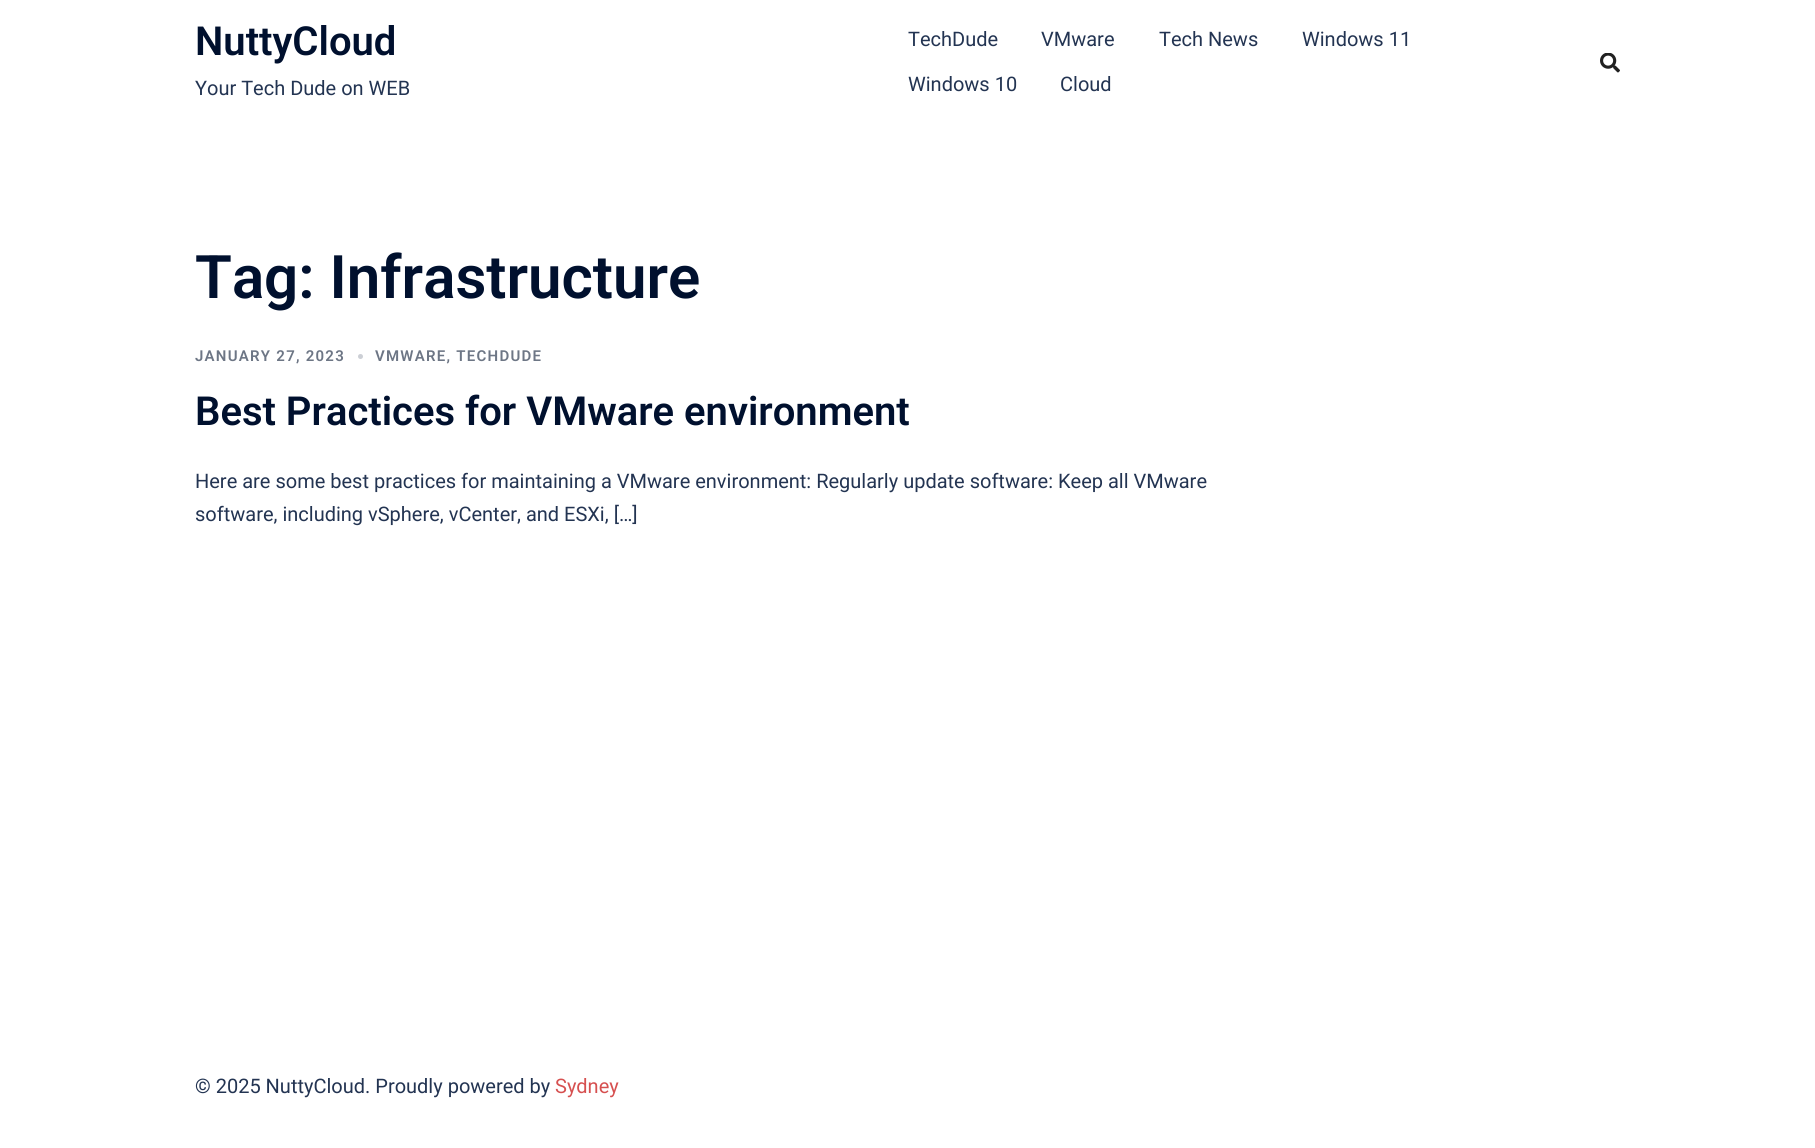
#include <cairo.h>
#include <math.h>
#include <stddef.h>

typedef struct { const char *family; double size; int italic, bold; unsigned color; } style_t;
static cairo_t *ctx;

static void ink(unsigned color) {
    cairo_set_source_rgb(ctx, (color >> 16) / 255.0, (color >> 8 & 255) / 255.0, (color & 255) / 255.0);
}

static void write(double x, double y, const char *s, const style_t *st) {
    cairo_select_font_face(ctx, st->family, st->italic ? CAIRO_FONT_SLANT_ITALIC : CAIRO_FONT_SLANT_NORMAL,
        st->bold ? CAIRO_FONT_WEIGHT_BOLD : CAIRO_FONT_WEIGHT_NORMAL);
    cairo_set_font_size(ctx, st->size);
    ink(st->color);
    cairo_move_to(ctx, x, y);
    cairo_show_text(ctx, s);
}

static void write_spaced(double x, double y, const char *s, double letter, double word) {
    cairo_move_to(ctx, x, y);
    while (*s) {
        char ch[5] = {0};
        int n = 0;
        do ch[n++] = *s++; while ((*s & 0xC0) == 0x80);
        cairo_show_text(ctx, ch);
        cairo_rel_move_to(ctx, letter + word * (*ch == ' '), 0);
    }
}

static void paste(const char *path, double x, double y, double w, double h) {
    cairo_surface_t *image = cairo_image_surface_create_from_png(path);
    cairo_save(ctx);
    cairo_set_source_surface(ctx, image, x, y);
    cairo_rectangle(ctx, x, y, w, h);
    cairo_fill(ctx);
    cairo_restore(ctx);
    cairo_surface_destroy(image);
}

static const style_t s1 = {"Roboto SemiBold", 40, 0, 0, 0x00102e};
static const style_t s2 = {"Roboto", 20, 0, 0, 0x233452};
static const style_t s3 = {"Roboto SemiBold", 60, 0, 0, 0x00102e};
static const style_t s4 = {"Roboto", 20, 0, 0, 0xd65050};

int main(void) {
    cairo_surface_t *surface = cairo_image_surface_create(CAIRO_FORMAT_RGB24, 1815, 1148);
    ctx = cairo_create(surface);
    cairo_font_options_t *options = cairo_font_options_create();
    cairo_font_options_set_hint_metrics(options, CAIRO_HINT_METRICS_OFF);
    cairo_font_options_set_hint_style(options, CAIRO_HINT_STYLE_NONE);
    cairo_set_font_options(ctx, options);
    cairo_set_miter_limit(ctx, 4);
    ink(0xffffff);
    cairo_paint(ctx);
    write(195, 55, "NuttyCloud", &s1);
    write(195, 95, "Your Tech Dude on WEB", &s2);
    write(908, 46, "TechDude", &s2);
    write(1041, 46, "VMware", &s2);
    write(1159, 46, "Tech News", &s2);
    write(1302, 46, "Windows 11", &s2);
    write(908, 91, "Windows 10", &s2);
    write(1060, 91, "Cloud", &s2);
    paste("pic1.png", 1600, 53, 20, 20);
    write(195, 298, "Tag: Infrastructure", &s3);
    cairo_set_font_size(ctx, 15);
    ink(0x6d7685);
    write_spaced(195, 361, "JANUARY 27, 2023", 1.25, 0);
    ink(0xcccfd5);
    cairo_new_path(ctx);
    cairo_arc(ctx, 360.5, 356.5, 2.5, 0, 2 * M_PI);
    cairo_fill(ctx);
    ink(0x6d7685);
    write_spaced(375, 361, "VMWARE, TECHDUDE", 1.25, 0);
    write(195, 425, "Best Practices for VMware environment", &s1);
    write(195, 488, "Here are some best practices for maintaining a VMware environment: Regularly update software: Keep all VMware", &s2);
    write(195, 521, "software, including vSphere, vCenter, and ESXi, […]", &s2);
    write(195, 1093, "© 2025 NuttyCloud. Proudly powered by", &s2);
    write(555, 1093, "Sydney", &s4);
    cairo_surface_write_to_png(surface, "screenshot.png");
    cairo_font_options_destroy(options);
    cairo_destroy(ctx);
    cairo_surface_destroy(surface);
    return 0;
}
